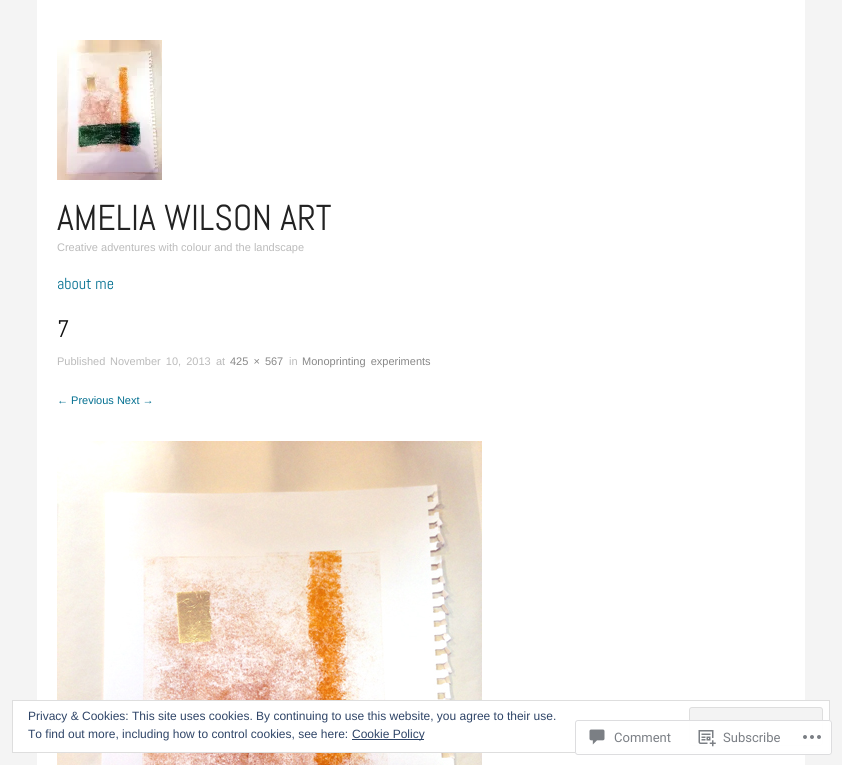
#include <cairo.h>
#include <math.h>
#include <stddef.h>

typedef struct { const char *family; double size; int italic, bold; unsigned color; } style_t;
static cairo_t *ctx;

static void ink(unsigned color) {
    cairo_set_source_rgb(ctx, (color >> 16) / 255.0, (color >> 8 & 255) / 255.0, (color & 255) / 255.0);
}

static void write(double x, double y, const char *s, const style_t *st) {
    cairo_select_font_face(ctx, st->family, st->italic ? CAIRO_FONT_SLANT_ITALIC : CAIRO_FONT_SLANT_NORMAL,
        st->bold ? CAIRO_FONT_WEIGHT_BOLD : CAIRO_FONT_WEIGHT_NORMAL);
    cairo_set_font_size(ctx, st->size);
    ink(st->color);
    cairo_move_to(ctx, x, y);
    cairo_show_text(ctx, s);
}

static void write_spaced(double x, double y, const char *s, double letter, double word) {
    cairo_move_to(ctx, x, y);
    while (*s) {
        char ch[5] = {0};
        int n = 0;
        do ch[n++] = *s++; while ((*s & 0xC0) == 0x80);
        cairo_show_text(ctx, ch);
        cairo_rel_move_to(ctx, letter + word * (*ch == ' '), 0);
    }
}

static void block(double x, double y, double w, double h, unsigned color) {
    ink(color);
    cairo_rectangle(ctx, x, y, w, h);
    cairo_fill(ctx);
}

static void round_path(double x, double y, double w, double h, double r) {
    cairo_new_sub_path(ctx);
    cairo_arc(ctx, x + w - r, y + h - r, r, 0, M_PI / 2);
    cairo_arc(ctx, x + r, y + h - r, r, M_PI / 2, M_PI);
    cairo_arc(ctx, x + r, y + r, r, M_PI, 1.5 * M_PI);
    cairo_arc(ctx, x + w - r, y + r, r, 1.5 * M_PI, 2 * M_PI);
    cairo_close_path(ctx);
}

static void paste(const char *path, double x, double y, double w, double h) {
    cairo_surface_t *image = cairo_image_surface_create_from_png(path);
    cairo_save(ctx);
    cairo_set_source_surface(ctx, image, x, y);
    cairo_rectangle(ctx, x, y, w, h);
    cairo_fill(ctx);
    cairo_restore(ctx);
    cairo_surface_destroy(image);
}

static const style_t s1 = {"Abel", 36, 0, 0, 0x222222};
static const style_t s2 = {"Liberation Sans", 11, 0, 0, 0xbbbbbb};
static const style_t s3 = {"Abel", 16, 0, 0, 0x026f90};
static const style_t s4 = {"Abel", 24, 0, 0, 0x111111};
static const style_t s5 = {"Liberation Sans", 11, 0, 0, 0x026f90};
static const style_t s6 = {"Liberation Sans", 12, 0, 0, 0x2e4467};
static const style_t s7 = {"Roboto", 13, 0, 0, 0x7b7f85};

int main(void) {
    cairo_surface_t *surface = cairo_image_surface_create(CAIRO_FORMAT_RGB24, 842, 765);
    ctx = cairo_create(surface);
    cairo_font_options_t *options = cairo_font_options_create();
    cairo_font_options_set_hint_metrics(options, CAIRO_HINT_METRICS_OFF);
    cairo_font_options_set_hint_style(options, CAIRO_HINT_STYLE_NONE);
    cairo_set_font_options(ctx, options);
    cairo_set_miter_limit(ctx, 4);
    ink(0xf4f4f4);
    cairo_paint(ctx);
    block(37, 0, 768, 765, 0xffffff);
    paste("pic1.png", 57, 40, 105, 140);
    write(57, 230, "AMELIA WILSON ART", &s1);
    write(57, 251, "Creative adventures with colour and the landscape", &s2);
    write(57, 289, "about me", &s3);
    write(57, 337, "7", &s4);
    write(57, 365, "Published", &s2);
    write_spaced(110, 365, "November 10, 2013", 0, 2);
    write(216, 365, "at", &s2);
    ink(0x888888);
    write_spaced(230, 365, "425 × 567", 0, 2);
    write(289, 365, "in", &s2);
    ink(0x888888);
    write_spaced(302, 365, "Monoprinting experiments", 0, 2);
    write(57, 404, "← Previous Next →", &s5);
    paste("pic2.png", 57, 441, 425, 324);
    ink(0xffffff);
    cairo_rectangle(ctx, 12.5, 700.5, 817, 52);
    cairo_fill_preserve(ctx);
    ink(0xdedede);
    cairo_set_line_width(ctx, 1);
    cairo_stroke(ctx);
    write(28, 720, "Privacy & Cookies: This site uses cookies. By continuing to use this website, you agree to their use.", &s6);
    ink(0xf3f3f3);
    round_path(689.5, 707.5, 133, 38, 2.5);
    cairo_fill_preserve(ctx);
    ink(0xdedede);
    cairo_stroke(ctx);
    write(28, 738, "To find out more, including how to control cookies, see here:", &s6);
    block(352, 739, 72, 1, 0x2e4467);
    write(352, 738, "Cookie Policy", &s6);
    cairo_set_source_rgba(ctx, 1, 1, 1, 0.98);
    round_path(575, 720, 257, 35, 3);
    cairo_fill(ctx);
    round_path(575.5, 720.5, 256, 34, 2.5);
    cairo_set_source_rgba(ctx, 0.863, 0.863, 0.871, 0.98);
    cairo_stroke(ctx);
    paste("pic3.png", 589, 729, 16, 16);
    write(614, 742, "Comment", &s7);
    paste("pic4.png", 698, 730, 18, 17);
    write(723, 742, "Subscribe", &s7);
    paste("pic5.png", 803, 735, 18, 4);
    cairo_surface_write_to_png(surface, "screenshot.png");
    cairo_font_options_destroy(options);
    cairo_destroy(ctx);
    cairo_surface_destroy(surface);
    return 0;
}
